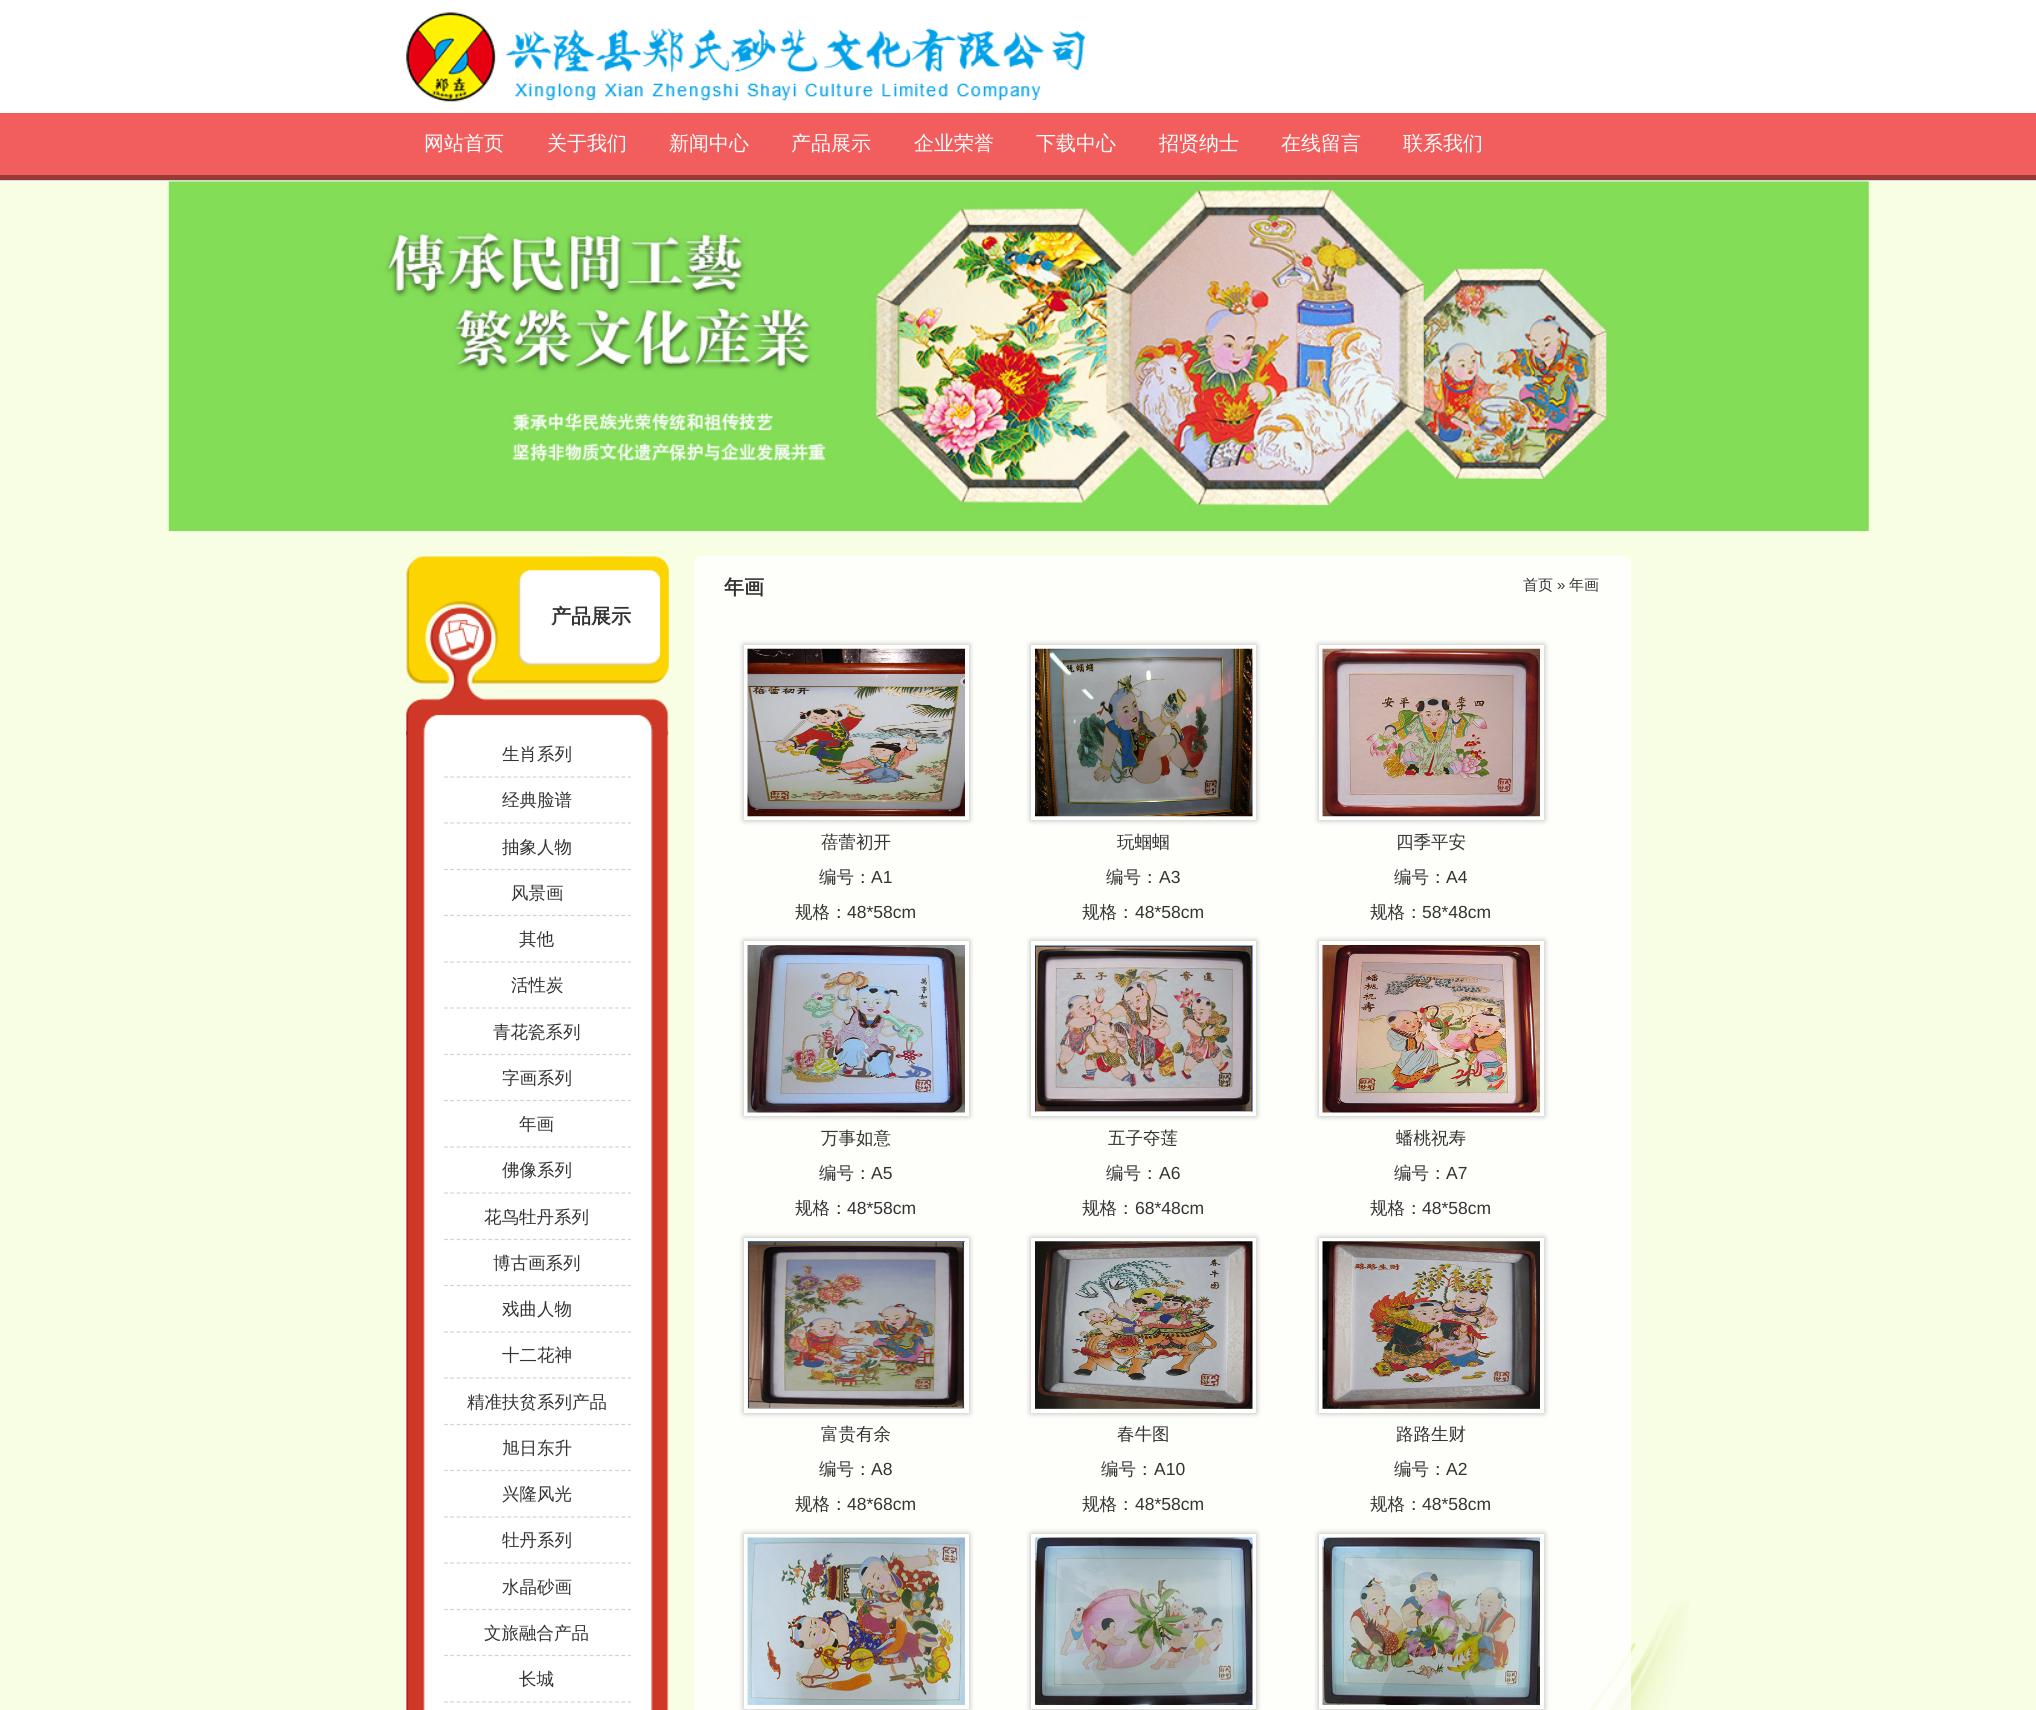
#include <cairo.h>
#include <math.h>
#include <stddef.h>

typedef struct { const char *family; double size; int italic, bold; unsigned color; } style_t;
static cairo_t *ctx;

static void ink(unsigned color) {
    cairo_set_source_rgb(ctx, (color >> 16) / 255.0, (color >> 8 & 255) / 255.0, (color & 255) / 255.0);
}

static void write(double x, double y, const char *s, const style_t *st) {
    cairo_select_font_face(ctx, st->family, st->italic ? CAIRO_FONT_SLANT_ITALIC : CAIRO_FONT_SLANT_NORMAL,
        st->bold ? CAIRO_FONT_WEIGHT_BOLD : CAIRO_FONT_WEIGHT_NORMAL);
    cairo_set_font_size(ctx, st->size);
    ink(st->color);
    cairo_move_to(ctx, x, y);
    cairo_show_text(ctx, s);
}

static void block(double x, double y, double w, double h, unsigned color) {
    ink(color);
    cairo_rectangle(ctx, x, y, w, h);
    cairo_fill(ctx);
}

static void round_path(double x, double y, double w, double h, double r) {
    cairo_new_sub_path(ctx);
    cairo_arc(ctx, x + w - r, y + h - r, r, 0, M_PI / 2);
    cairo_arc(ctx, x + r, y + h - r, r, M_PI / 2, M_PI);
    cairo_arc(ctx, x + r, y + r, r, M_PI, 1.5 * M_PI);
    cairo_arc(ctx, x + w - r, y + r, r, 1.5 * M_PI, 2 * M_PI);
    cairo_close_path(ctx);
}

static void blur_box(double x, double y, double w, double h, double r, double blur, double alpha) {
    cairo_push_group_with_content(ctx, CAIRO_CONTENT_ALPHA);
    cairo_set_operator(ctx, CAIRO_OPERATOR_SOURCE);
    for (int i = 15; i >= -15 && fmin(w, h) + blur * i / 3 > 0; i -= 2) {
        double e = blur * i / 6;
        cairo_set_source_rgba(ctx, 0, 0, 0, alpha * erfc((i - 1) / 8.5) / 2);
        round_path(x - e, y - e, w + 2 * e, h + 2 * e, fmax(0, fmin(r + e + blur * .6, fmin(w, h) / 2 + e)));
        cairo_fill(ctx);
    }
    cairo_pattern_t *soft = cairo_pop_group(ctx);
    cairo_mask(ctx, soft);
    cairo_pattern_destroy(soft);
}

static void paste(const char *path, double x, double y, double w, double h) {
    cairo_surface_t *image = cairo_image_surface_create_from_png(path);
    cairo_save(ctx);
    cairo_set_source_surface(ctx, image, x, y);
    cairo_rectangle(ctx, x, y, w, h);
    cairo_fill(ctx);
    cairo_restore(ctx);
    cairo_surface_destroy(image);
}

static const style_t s1 = {"WenQuanYi Zen Hei Medium", 20, 0, 0, 0xffffff};
static const style_t s2 = {"WenQuanYi Zen Hei", 20, 0, 1, 0x333333};
static const style_t s3 = {"WenQuanYi Zen Hei Medium", 17.5, 0, 0, 0x333333};
static const style_t s4 = {"WenQuanYi Zen Hei Medium", 15, 0, 0, 0x333333};
static const style_t s5 = {"Liberation Sans", 15, 0, 0, 0x333333};
static const style_t s6 = {"Liberation Sans", 17.5, 0, 0, 0x333333};

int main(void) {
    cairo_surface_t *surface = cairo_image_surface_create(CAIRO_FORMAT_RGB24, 2036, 1710);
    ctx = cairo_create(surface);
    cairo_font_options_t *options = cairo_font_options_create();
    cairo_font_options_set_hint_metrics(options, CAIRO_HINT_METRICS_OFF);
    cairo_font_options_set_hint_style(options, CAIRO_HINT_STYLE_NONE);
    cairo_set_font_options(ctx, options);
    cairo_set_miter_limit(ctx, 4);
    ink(0xf8fee4);
    cairo_paint(ctx);
    paste("pic1.png", 667, 1600, 1022, 110);
    block(0, 0, 2036, 113, 0xffffff);
    paste("pic2.png", 406, 12, 679, 90);
    block(0, 113, 2036, 62, 0xf15e5d);
    block(0, 175, 2036, 5, 0x983a38);
    write(424, 150, "网站首页", &s1);
    write(547, 150, "关于我们", &s1);
    write(669, 150, "新闻中心", &s1);
    write(791, 150, "产品展示", &s1);
    write(914, 150, "企业荣誉", &s1);
    write(1036, 150, "下载中心", &s1);
    write(1159, 150, "招贤纳士", &s1);
    write(1281, 150, "在线留言", &s1);
    write(1403, 150, "联系我们", &s1);
    block(0, 180, 2036, 1, 0xd7d7d7);
    paste("pic3.png", 168, 181, 1701, 351);
    paste("pic4.png", 406, 556, 263, 179);
    write(551, 623, "产品展示", &s2);
    paste("pic5.png", 406, 731, 263, 979);
    cairo_new_path(ctx);
    cairo_move_to(ctx, 444, 777);
    cairo_line_to(ctx, 631, 777);
    ink(0xd8d2c6);
    cairo_set_line_width(ctx, 1.2);
    cairo_set_dash(ctx, (double[]){3.75, 2.59}, 2, 0);
    cairo_stroke(ctx);
    write(502, 760, "生肖系列", &s3);
    cairo_new_path(ctx);
    cairo_move_to(ctx, 444, 823);
    cairo_line_to(ctx, 631, 823);
    ink(0xd8d2c6);
    cairo_stroke(ctx);
    write(502, 806, "经典脸谱", &s3);
    cairo_new_path(ctx);
    cairo_move_to(ctx, 444, 869.5);
    cairo_line_to(ctx, 631, 869.5);
    ink(0xd8d2c6);
    cairo_stroke(ctx);
    write(502, 853, "抽象人物", &s3);
    cairo_new_path(ctx);
    cairo_move_to(ctx, 444, 915.5);
    cairo_line_to(ctx, 631, 915.5);
    ink(0xd8d2c6);
    cairo_stroke(ctx);
    write(511, 899, "风景画", &s3);
    cairo_new_path(ctx);
    cairo_move_to(ctx, 444, 962);
    cairo_line_to(ctx, 631, 962);
    ink(0xd8d2c6);
    cairo_stroke(ctx);
    write(519, 945, "其他", &s3);
    cairo_new_path(ctx);
    cairo_move_to(ctx, 444, 1008);
    cairo_line_to(ctx, 631, 1008);
    ink(0xd8d2c6);
    cairo_stroke(ctx);
    write(511, 991, "活性炭", &s3);
    cairo_new_path(ctx);
    cairo_move_to(ctx, 444, 1054.5);
    cairo_line_to(ctx, 631, 1054.5);
    ink(0xd8d2c6);
    cairo_stroke(ctx);
    write(493, 1038, "青花瓷系列", &s3);
    cairo_new_path(ctx);
    cairo_move_to(ctx, 444, 1100.5);
    cairo_line_to(ctx, 631, 1100.5);
    ink(0xd8d2c6);
    cairo_stroke(ctx);
    write(502, 1084, "字画系列", &s3);
    cairo_new_path(ctx);
    cairo_move_to(ctx, 444, 1147);
    cairo_line_to(ctx, 631, 1147);
    ink(0xd8d2c6);
    cairo_stroke(ctx);
    write(519, 1130, "年画", &s3);
    cairo_new_path(ctx);
    cairo_move_to(ctx, 444, 1193);
    cairo_line_to(ctx, 631, 1193);
    ink(0xd8d2c6);
    cairo_stroke(ctx);
    write(502, 1176, "佛像系列", &s3);
    cairo_new_path(ctx);
    cairo_move_to(ctx, 444, 1239.5);
    cairo_line_to(ctx, 631, 1239.5);
    ink(0xd8d2c6);
    cairo_stroke(ctx);
    write(484, 1223, "花鸟牡丹系列", &s3);
    cairo_new_path(ctx);
    cairo_move_to(ctx, 444, 1285.5);
    cairo_line_to(ctx, 631, 1285.5);
    ink(0xd8d2c6);
    cairo_stroke(ctx);
    write(493, 1269, "博古画系列", &s3);
    cairo_new_path(ctx);
    cairo_move_to(ctx, 444, 1332);
    cairo_line_to(ctx, 631, 1332);
    ink(0xd8d2c6);
    cairo_stroke(ctx);
    write(502, 1315, "戏曲人物", &s3);
    cairo_new_path(ctx);
    cairo_move_to(ctx, 444, 1378);
    cairo_line_to(ctx, 631, 1378);
    ink(0xd8d2c6);
    cairo_stroke(ctx);
    write(502, 1361, "十二花神", &s3);
    cairo_new_path(ctx);
    cairo_move_to(ctx, 444, 1424.5);
    cairo_line_to(ctx, 631, 1424.5);
    ink(0xd8d2c6);
    cairo_stroke(ctx);
    write(467, 1408, "精准扶贫系列产品", &s3);
    cairo_new_path(ctx);
    cairo_move_to(ctx, 444, 1470.5);
    cairo_line_to(ctx, 631, 1470.5);
    ink(0xd8d2c6);
    cairo_stroke(ctx);
    write(502, 1454, "旭日东升", &s3);
    cairo_new_path(ctx);
    cairo_move_to(ctx, 444, 1517);
    cairo_line_to(ctx, 631, 1517);
    ink(0xd8d2c6);
    cairo_stroke(ctx);
    write(502, 1500, "兴隆风光", &s3);
    cairo_new_path(ctx);
    cairo_move_to(ctx, 444, 1563);
    cairo_line_to(ctx, 631, 1563);
    ink(0xd8d2c6);
    cairo_stroke(ctx);
    write(502, 1546, "牡丹系列", &s3);
    cairo_new_path(ctx);
    cairo_move_to(ctx, 444, 1609.5);
    cairo_line_to(ctx, 631, 1609.5);
    ink(0xd8d2c6);
    cairo_stroke(ctx);
    write(502, 1593, "水晶砂画", &s3);
    cairo_new_path(ctx);
    cairo_move_to(ctx, 444, 1655.5);
    cairo_line_to(ctx, 631, 1655.5);
    ink(0xd8d2c6);
    cairo_stroke(ctx);
    write(484, 1639, "文旅融合产品", &s3);
    cairo_new_path(ctx);
    cairo_move_to(ctx, 444, 1702);
    cairo_line_to(ctx, 631, 1702);
    ink(0xd8d2c6);
    cairo_stroke(ctx);
    write(519, 1685, "长城", &s3);
    cairo_set_source_rgba(ctx, 1, 1, 1, 0.8);
    round_path(694, 556, 937, 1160, 6);
    cairo_fill(ctx);
    write(724, 594, "年画", &s2);
    write(1523, 590, "首页", &s4);
    write(1557, 590, "»", &s5);
    write(1569, 590, "年画", &s4);
    ink(0x000000);
    blur_box(744, 645, 225, 175, 0, 3, 0.3);
    cairo_rectangle(ctx, 746, 647, 221, 171);
    ink(0xffffff);
    cairo_set_line_width(ctx, 4);
    cairo_set_dash(ctx, NULL, 0, 0);
    cairo_stroke(ctx);
    paste("pic6.png", 747, 648, 218, 169);
    write(821, 848, "蓓蕾初开", &s3);
    write(819, 883, "编号：", &s3);
    write(871, 883, "A1", &s6);
    write(795, 918, "规格：", &s3);
    write(847, 918, "48*58cm", &s6);
    ink(0x000000);
    blur_box(1031, 645, 225, 175, 0, 3, 0.3);
    cairo_rectangle(ctx, 1033, 647, 221, 171);
    ink(0xffffff);
    cairo_stroke(ctx);
    paste("pic7.png", 1035, 648, 218, 169);
    write(1117, 848, "玩蝈蝈", &s3);
    write(1106, 883, "编号：", &s3);
    write(1159, 883, "A3", &s6);
    write(1082, 918, "规格：", &s3);
    write(1135, 918, "48*58cm", &s6);
    ink(0x000000);
    blur_box(1319, 645, 225, 175, 0, 3, 0.3);
    cairo_rectangle(ctx, 1321, 647, 221, 171);
    ink(0xffffff);
    cairo_stroke(ctx);
    paste("pic8.png", 1322, 648, 218, 169);
    write(1396, 848, "四季平安", &s3);
    write(1394, 883, "编号：", &s3);
    write(1446, 883, "A4", &s6);
    write(1370, 918, "规格：", &s3);
    write(1422, 918, "58*48cm", &s6);
    ink(0x000000);
    blur_box(744, 941, 225, 175, 0, 3, 0.3);
    cairo_rectangle(ctx, 746, 943, 221, 171);
    ink(0xffffff);
    cairo_stroke(ctx);
    paste("pic9.png", 747, 945, 218, 168);
    write(821, 1144, "万事如意", &s3);
    write(819, 1179, "编号：", &s3);
    write(871, 1179, "A5", &s6);
    write(795, 1214, "规格：", &s3);
    write(847, 1214, "48*58cm", &s6);
    ink(0x000000);
    blur_box(1031, 941, 225, 175, 0, 3, 0.3);
    cairo_rectangle(ctx, 1033, 943, 221, 171);
    ink(0xffffff);
    cairo_stroke(ctx);
    paste("pic10.png", 1035, 945, 218, 168);
    write(1108, 1144, "五子夺莲", &s3);
    write(1106, 1179, "编号：", &s3);
    write(1159, 1179, "A6", &s6);
    write(1082, 1214, "规格：", &s3);
    write(1135, 1214, "68*48cm", &s6);
    ink(0x000000);
    blur_box(1319, 941, 225, 175, 0, 3, 0.3);
    cairo_rectangle(ctx, 1321, 943, 221, 171);
    ink(0xffffff);
    cairo_stroke(ctx);
    paste("pic11.png", 1322, 945, 218, 168);
    write(1396, 1144, "蟠桃祝寿", &s3);
    write(1394, 1179, "编号：", &s3);
    write(1446, 1179, "A7", &s6);
    write(1370, 1214, "规格：", &s3);
    write(1422, 1214, "48*58cm", &s6);
    ink(0x000000);
    blur_box(744, 1238, 225, 175, 0, 3, 0.3);
    cairo_rectangle(ctx, 746, 1240, 221, 171);
    ink(0xffffff);
    cairo_stroke(ctx);
    paste("pic12.png", 747, 1241, 218, 168);
    write(821, 1440, "富贵有余", &s3);
    write(819, 1475, "编号：", &s3);
    write(871, 1475, "A8", &s6);
    write(795, 1510, "规格：", &s3);
    write(847, 1510, "48*68cm", &s6);
    ink(0x000000);
    blur_box(1031, 1238, 225, 175, 0, 3, 0.3);
    cairo_rectangle(ctx, 1033, 1240, 221, 171);
    ink(0xffffff);
    cairo_stroke(ctx);
    paste("pic13.png", 1035, 1241, 218, 168);
    write(1117, 1440, "春牛图", &s3);
    write(1101, 1475, "编号：", &s3);
    write(1154, 1475, "A10", &s6);
    write(1082, 1510, "规格：", &s3);
    write(1135, 1510, "48*58cm", &s6);
    ink(0x000000);
    blur_box(1319, 1238, 225, 175, 0, 3, 0.3);
    cairo_rectangle(ctx, 1321, 1240, 221, 171);
    ink(0xffffff);
    cairo_stroke(ctx);
    paste("pic14.png", 1322, 1241, 218, 168);
    write(1396, 1440, "路路生财", &s3);
    write(1394, 1475, "编号：", &s3);
    write(1446, 1475, "A2", &s6);
    write(1370, 1510, "规格：", &s3);
    write(1422, 1510, "48*58cm", &s6);
    ink(0x000000);
    blur_box(744, 1534, 225, 175, 0, 3, 0.3);
    cairo_rectangle(ctx, 746, 1536, 221, 171);
    ink(0xffffff);
    cairo_stroke(ctx);
    paste("pic15.png", 747, 1537, 218, 168);
    ink(0x000000);
    blur_box(1031, 1534, 225, 175, 0, 3, 0.3);
    cairo_rectangle(ctx, 1033, 1536, 221, 171);
    ink(0xffffff);
    cairo_stroke(ctx);
    paste("pic16.png", 1035, 1537, 218, 168);
    ink(0x000000);
    blur_box(1319, 1534, 225, 175, 0, 3, 0.3);
    cairo_rectangle(ctx, 1321, 1536, 221, 171);
    ink(0xffffff);
    cairo_stroke(ctx);
    paste("pic17.png", 1322, 1537, 218, 168);
    cairo_surface_write_to_png(surface, "screenshot.png");
    cairo_font_options_destroy(options);
    cairo_destroy(ctx);
    cairo_surface_destroy(surface);
    return 0;
}
